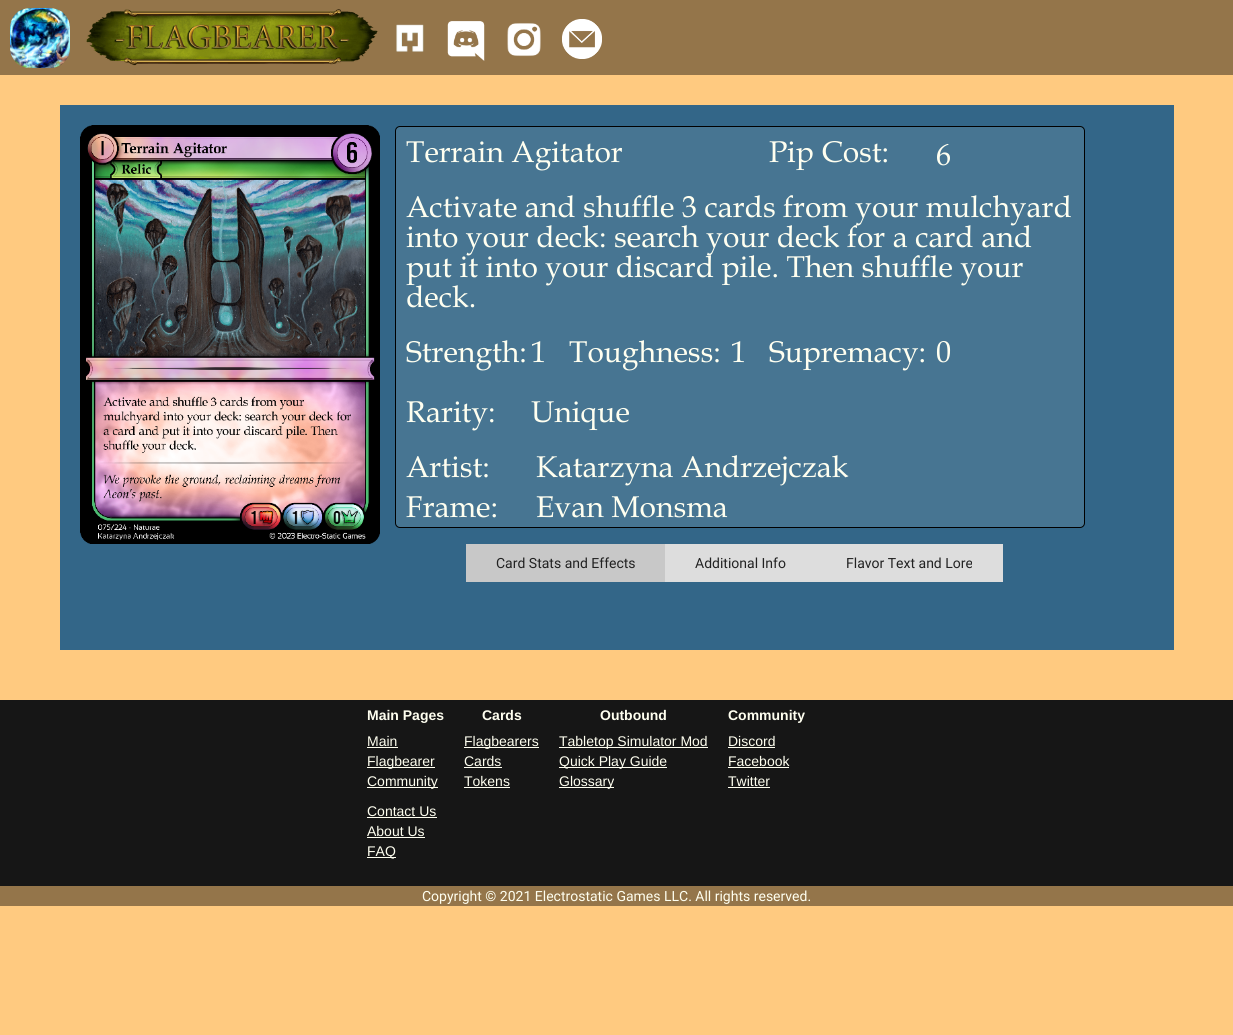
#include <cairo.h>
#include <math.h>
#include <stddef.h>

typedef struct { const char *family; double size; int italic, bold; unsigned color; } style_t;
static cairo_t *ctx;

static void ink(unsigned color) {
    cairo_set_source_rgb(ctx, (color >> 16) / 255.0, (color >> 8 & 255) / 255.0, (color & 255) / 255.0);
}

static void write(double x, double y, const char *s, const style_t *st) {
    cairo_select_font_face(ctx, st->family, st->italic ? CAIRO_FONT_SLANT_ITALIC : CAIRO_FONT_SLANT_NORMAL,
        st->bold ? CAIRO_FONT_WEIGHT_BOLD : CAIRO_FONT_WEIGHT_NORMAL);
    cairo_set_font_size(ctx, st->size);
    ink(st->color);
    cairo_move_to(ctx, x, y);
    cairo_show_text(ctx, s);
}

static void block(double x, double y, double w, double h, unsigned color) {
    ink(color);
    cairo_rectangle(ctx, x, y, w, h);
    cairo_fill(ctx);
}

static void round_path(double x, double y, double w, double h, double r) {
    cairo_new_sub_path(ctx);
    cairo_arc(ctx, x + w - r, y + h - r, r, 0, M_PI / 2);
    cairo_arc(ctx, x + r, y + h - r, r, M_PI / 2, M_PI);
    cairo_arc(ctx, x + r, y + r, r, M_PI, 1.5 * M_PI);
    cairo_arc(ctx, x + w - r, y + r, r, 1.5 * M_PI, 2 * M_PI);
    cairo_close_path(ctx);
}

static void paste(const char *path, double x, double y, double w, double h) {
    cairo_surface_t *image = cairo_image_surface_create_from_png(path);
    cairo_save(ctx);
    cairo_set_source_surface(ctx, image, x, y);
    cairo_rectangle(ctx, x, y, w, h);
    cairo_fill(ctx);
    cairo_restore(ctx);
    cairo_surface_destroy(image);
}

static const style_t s1 = {"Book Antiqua", 30, 0, 0, 0xfffff0};
static const style_t s2 = {"Roboto", 14, 0, 0, 0x222222};
static const style_t s3 = {"Liberation Sans", 14, 0, 1, 0xfffff0};
static const style_t s4 = {"Liberation Sans", 14, 0, 0, 0xfffff0};
static const style_t s5 = {"Roboto", 14, 0, 0, 0xfffff0};

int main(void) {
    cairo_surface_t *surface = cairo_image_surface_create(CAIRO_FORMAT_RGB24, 1233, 1035);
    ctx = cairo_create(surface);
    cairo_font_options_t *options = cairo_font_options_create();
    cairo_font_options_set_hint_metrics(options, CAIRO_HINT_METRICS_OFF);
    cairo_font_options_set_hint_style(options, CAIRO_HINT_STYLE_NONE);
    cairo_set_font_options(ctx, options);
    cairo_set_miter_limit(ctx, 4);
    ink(0xffca80);
    cairo_paint(ctx);
    block(0, 0, 1233, 75, 0x94754a);
    paste("pic1.png", 10, 8, 60, 60);
    paste("pic2.png", 86, 9, 292, 57);
    paste("pic3.png", 396, 24, 28, 28);
    paste("pic4.png", 447, 21, 38, 40);
    paste("pic5.png", 507, 23, 34, 34);
    paste("pic6.png", 562, 19, 40, 40);
    block(60, 105, 1114, 545, 0x336688);
    paste("pic7.png", 80, 125, 300, 419);
    ink(0x477592);
    round_path(395.5, 126.5, 689, 401, 4.5);
    cairo_fill_preserve(ctx);
    ink(0x000000);
    cairo_set_line_width(ctx, 1);
    cairo_stroke(ctx);
    write(406, 162, "Terrain Agitator", &s1);
    write(769, 162, "Pip Cost:", &s1);
    write(936, 165, "6", &s1);
    write(406, 217, "Activate and shuffle 3 cards from your mulchyard", &s1);
    write(406, 247, "into your deck: search your deck for a card and", &s1);
    write(406, 277, "put it into your discard pile. Then shuffle your", &s1);
    write(406, 307, "deck.", &s1);
    write(406, 362, "Strength:", &s1);
    write(531, 362, "1", &s1);
    write(569, 362, "Toughness:", &s1);
    write(731, 362, "1", &s1);
    write(769, 362, "Supremacy:", &s1);
    write(936, 362, "0", &s1);
    write(406, 422, "Rarity:", &s1);
    write(531, 422, "Unique", &s1);
    write(406, 477, "Artist:", &s1);
    write(536, 477, "Katarzyna Andrzejczak", &s1);
    write(406, 517, "Frame:", &s1);
    write(536, 517, "Evan Monsma", &s1);
    block(466, 544, 199, 38, 0xc8c8c8);
    write(496, 568, "Card Stats and Effects", &s2);
    block(665, 544, 338, 38, 0xdddddd);
    write(695, 568, "Additional Info", &s2);
    write(846, 568, "Flavor Text and Lore", &s2);
    block(0, 700, 1233, 186, 0x161616);
    write(367, 720, "Main Pages", &s3);
    write(367, 746, "Main", &s4);
    block(367, 747, 31, 1, 0xfffff0);
    block(367, 767, 68, 1, 0xfffff0);
    write(367, 766, "Flagbearer", &s4);
    block(367, 787, 71, 1, 0xfffff0);
    write(367, 786, "Community", &s4);
    write(367, 816, "Contact Us", &s4);
    block(367, 817, 70, 1, 0xfffff0);
    write(367, 836, "About Us", &s4);
    block(367, 837, 58, 1, 0xfffff0);
    block(367, 857, 29, 1, 0xfffff0);
    write(367, 856, "FAQ", &s4);
    write(482, 720, "Cards", &s3);
    block(464, 747, 75, 1, 0xfffff0);
    write(464, 746, "Flagbearers", &s4);
    write(464, 766, "Cards", &s4);
    block(464, 767, 38, 1, 0xfffff0);
    write(464, 786, "Tokens", &s4);
    block(464, 787, 46, 1, 0xfffff0);
    write(600, 720, "Outbound", &s3);
    block(559, 747, 149, 1, 0xfffff0);
    write(559, 746, "Tabletop Simulator Mod", &s4);
    block(559, 767, 108, 1, 0xfffff0);
    write(559, 766, "Quick Play Guide", &s4);
    block(559, 787, 55, 1, 0xfffff0);
    write(559, 786, "Glossary", &s4);
    write(728, 720, "Community", &s3);
    write(728, 746, "Discord", &s4);
    block(728, 747, 47, 1, 0xfffff0);
    write(728, 766, "Facebook", &s4);
    block(728, 767, 61, 1, 0xfffff0);
    write(728, 786, "Twitter", &s4);
    block(728, 787, 42, 1, 0xfffff0);
    block(0, 886, 1233, 20, 0x94754a);
    write(422, 901, "Copyright © 2021 Electrostatic Games LLC. All rights reserved.", &s5);
    cairo_surface_write_to_png(surface, "screenshot.png");
    cairo_font_options_destroy(options);
    cairo_destroy(ctx);
    cairo_surface_destroy(surface);
    return 0;
}
